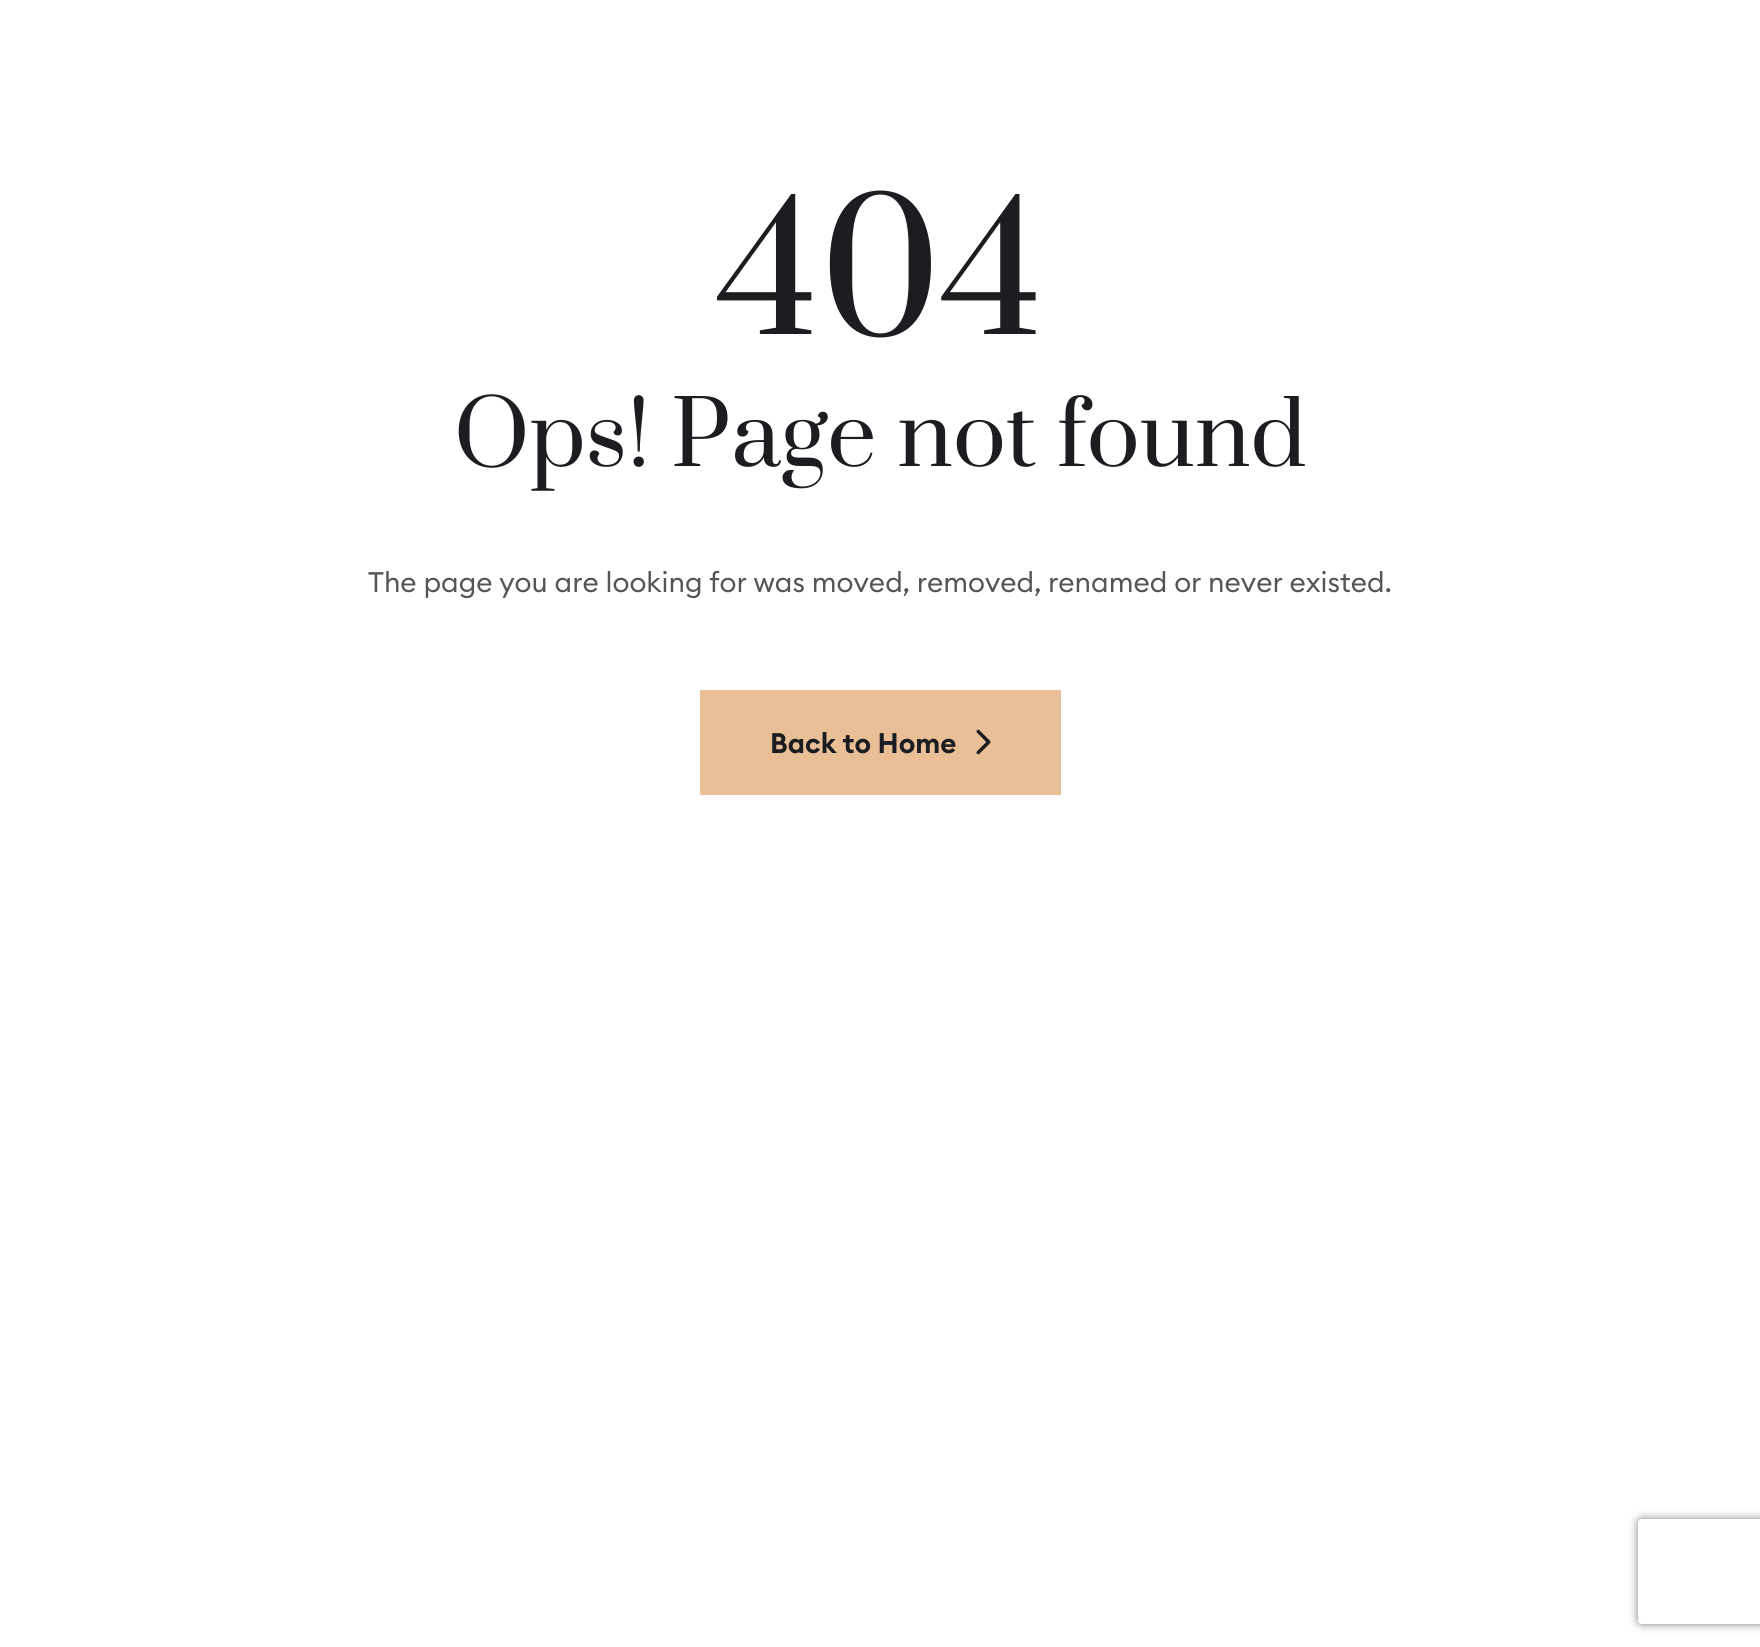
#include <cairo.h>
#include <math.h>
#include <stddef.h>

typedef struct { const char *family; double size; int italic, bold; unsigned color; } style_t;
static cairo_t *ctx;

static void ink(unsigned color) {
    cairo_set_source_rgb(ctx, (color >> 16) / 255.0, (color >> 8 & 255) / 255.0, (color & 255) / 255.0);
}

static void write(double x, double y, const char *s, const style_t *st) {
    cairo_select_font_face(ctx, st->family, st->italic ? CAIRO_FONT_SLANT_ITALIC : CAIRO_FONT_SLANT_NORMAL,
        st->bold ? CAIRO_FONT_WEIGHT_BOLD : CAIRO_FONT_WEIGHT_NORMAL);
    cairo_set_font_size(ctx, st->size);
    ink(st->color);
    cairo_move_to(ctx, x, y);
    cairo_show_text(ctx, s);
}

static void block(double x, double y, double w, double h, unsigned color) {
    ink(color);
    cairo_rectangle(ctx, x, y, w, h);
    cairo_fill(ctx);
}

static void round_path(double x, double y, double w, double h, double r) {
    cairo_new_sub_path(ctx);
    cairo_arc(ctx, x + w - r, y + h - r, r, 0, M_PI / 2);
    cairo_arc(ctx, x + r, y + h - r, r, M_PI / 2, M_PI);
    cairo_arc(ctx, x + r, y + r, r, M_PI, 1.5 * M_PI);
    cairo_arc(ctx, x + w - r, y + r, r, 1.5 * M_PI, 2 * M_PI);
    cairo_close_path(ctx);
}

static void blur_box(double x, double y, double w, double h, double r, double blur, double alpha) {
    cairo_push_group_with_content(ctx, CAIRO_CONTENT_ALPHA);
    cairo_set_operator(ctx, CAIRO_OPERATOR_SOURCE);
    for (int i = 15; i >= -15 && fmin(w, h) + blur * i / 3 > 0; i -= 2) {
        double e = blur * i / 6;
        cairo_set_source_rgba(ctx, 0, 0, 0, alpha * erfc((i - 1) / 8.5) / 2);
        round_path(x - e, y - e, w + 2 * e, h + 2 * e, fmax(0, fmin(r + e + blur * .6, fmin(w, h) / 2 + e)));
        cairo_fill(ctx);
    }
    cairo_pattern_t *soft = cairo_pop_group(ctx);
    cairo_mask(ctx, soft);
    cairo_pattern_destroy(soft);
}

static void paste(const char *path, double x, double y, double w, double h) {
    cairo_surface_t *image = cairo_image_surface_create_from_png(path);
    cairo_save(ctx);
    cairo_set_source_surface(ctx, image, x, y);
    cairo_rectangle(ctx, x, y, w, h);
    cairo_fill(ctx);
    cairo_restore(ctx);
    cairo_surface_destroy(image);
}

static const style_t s1 = {"Prata", 175, 0, 0, 0x1c1d20};
static const style_t s2 = {"Prata", 87.5, 0, 0, 0x1c1d20};
static const style_t s3 = {"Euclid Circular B", 28, 0, 0, 0x555555};
static const style_t s4 = {"Euclid Circular B SemiBold", 28, 0, 0, 0x1c1d20};

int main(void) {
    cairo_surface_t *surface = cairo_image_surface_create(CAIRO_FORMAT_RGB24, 1760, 1647);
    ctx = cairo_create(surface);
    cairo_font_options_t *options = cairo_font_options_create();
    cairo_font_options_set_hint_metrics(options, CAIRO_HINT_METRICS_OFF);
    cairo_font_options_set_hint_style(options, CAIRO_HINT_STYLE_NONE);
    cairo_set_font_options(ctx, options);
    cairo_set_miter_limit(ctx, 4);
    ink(0xffffff);
    cairo_paint(ctx);
    write(717, 334, "404", &s1);
    write(454, 466, "Ops! Page not found", &s2);
    write(368, 592, "The page you are looking for was moved, removed, renamed or never existed.", &s3);
    block(700, 690, 361, 105, 0xe8bf96);
    write(770, 753, "Back to Home", &s4);
    paste("pic1.png", 976, 729, 15, 26);
    cairo_save(ctx);
    cairo_set_fill_rule(ctx, CAIRO_FILL_RULE_EVEN_ODD);
    cairo_new_path(ctx);
    cairo_move_to(ctx, 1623, 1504);
    cairo_line_to(ctx, 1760, 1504);
    cairo_line_to(ctx, 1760, 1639);
    cairo_line_to(ctx, 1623, 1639);
    cairo_close_path(ctx);
    cairo_move_to(ctx, 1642, 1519);
    cairo_line_to(ctx, 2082, 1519);
    cairo_curve_to(ctx, 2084, 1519, 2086, 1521, 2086, 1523);
    cairo_line_to(ctx, 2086, 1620);
    cairo_curve_to(ctx, 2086, 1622, 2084, 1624, 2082, 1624);
    cairo_line_to(ctx, 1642, 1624);
    cairo_curve_to(ctx, 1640, 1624, 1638, 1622, 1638, 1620);
    cairo_line_to(ctx, 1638, 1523);
    cairo_curve_to(ctx, 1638, 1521, 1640, 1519, 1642, 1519);
    cairo_close_path(ctx);
    cairo_clip(ctx);
    ink(0x808080);
    blur_box(1638, 1519, 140, 105, 4, 4.5, 1);
    cairo_restore(ctx);
    cairo_surface_write_to_png(surface, "screenshot.png");
    cairo_font_options_destroy(options);
    cairo_destroy(ctx);
    cairo_surface_destroy(surface);
    return 0;
}
